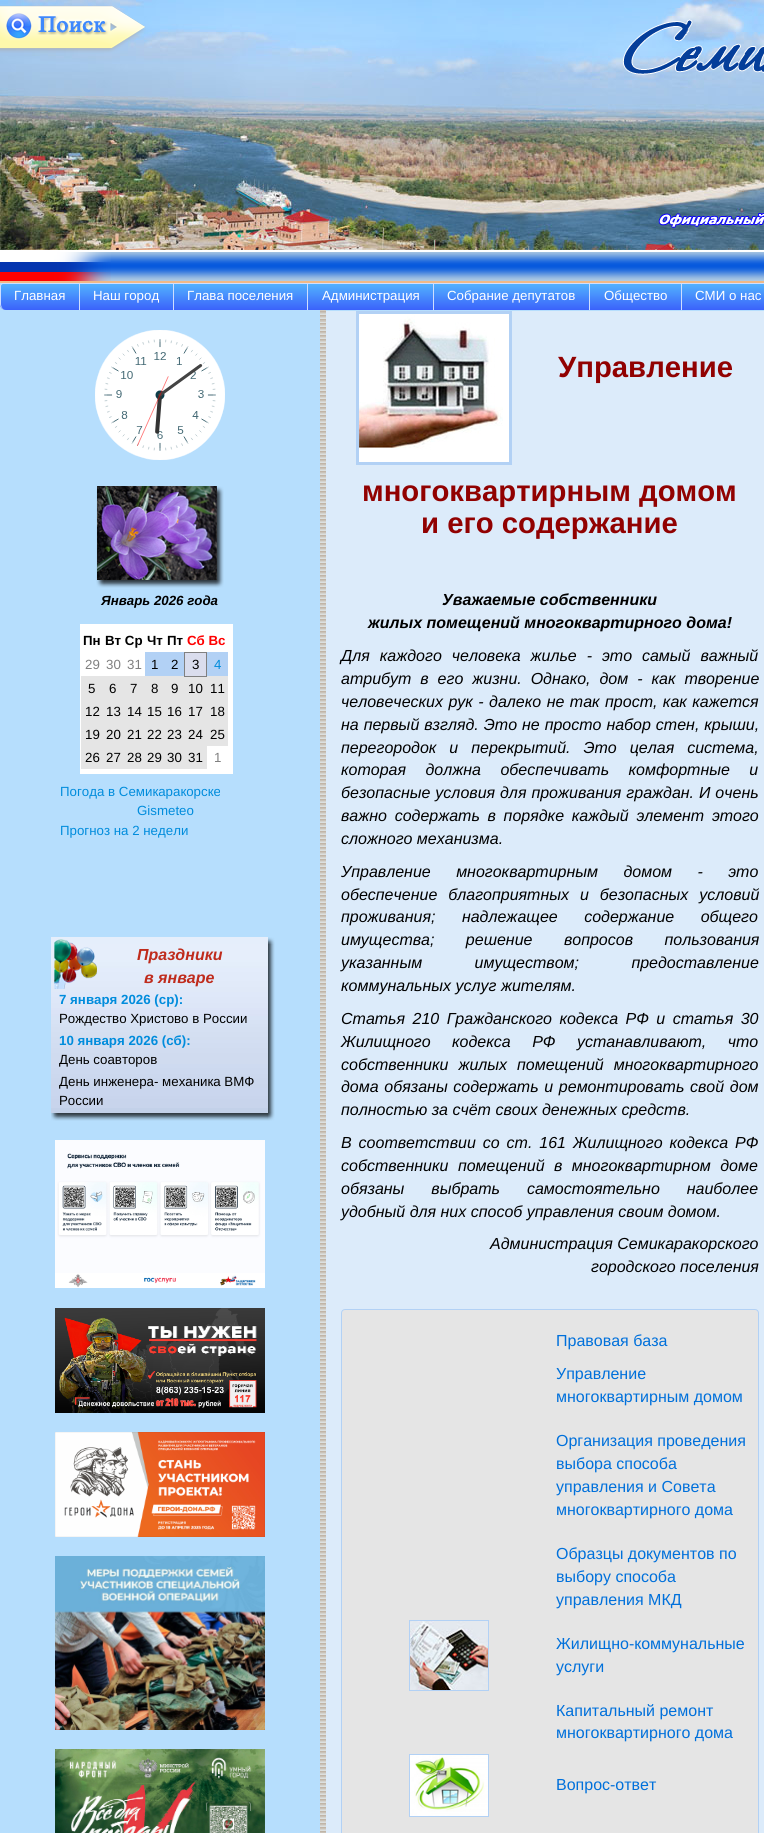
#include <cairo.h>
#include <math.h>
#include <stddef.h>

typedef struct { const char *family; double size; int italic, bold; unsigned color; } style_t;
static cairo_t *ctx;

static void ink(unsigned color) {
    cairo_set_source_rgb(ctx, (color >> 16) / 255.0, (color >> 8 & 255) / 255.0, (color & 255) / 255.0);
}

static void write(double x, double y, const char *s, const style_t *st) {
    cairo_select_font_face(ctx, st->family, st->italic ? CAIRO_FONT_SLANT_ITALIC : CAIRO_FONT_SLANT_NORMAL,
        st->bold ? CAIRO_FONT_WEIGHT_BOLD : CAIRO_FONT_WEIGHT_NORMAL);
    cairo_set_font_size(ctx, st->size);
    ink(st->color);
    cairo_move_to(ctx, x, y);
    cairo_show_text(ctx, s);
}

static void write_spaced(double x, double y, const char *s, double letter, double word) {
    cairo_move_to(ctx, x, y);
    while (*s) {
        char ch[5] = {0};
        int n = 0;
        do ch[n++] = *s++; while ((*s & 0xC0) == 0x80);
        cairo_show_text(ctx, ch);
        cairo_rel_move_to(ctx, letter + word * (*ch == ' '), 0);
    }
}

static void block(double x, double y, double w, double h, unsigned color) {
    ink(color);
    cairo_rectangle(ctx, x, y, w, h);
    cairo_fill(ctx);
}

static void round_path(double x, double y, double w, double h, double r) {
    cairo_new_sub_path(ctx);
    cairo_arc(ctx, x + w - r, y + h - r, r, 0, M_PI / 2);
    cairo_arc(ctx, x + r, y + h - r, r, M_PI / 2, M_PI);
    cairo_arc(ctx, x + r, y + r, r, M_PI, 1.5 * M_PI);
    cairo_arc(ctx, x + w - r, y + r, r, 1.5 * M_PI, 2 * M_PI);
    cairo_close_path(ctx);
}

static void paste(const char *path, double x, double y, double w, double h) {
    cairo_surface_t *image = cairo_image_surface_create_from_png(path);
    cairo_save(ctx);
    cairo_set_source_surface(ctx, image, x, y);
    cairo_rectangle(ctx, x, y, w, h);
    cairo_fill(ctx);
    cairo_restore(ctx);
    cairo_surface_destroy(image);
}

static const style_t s1 = {"Liberation Sans", 13.3, 0, 0, 0xffffff};
static const style_t s2 = {"Liberation Sans", 13.3, 1, 1, 0x000000};
static const style_t s3 = {"Liberation Sans", 13.3, 0, 1, 0x000000};
static const style_t s4 = {"Liberation Sans", 13.3, 0, 1, 0xff0000};
static const style_t s5 = {"Liberation Sans", 13.3, 0, 0, 0x808080};
static const style_t s6 = {"Liberation Sans", 13.3, 0, 0, 0x000000};
static const style_t s7 = {"Liberation Sans", 13.3, 0, 0, 0x008cdc};
static const style_t s8 = {"Liberation Sans", 16, 1, 1, 0xbf2b1c};
static const style_t s9 = {"Liberation Sans", 13.3, 0, 1, 0x008cdc};
static const style_t s10 = {"Liberation Sans", 29.3, 0, 1, 0x910101};
static const style_t s11 = {"Liberation Sans", 16, 1, 1, 0x000000};
static const style_t s12 = {"Liberation Sans", 16, 1, 0, 0x000000};
static const style_t s13 = {"Liberation Sans", 16, 0, 0, 0x0070db};

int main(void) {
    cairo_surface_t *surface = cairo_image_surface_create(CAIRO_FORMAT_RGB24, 764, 1833);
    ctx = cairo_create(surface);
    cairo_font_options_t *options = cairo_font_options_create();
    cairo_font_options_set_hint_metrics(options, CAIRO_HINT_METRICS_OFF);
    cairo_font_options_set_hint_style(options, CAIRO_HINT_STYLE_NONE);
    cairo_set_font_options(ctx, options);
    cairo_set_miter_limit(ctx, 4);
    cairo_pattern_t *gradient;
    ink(0xb6defd);
    cairo_paint(ctx);
    paste("pic2.png", 0, 0, 764, 250);
    paste("pic1.png", 0, 5, 146, 48);
    paste("pic3.png", 622, 19, 142, 209);
    block(0, 250, 764, 2, 0xffffff);
    paste("pic4.png", 54, 252, 66, 29);
    paste("pic5.png", 0, 252, 111, 29);
    paste("pic6.png", 120, 252, 644, 29);
    block(0, 281, 764, 2, 0xf0b986);
    cairo_save(ctx);
    cairo_new_path(ctx);
    cairo_move_to(ctx, 3, 283);
    cairo_line_to(ctx, 79, 283);
    cairo_line_to(ctx, 79, 310);
    cairo_line_to(ctx, 6, 310);
    cairo_curve_to(ctx, 2.5, 310, 0, 307.5, 0, 304);
    cairo_line_to(ctx, 0, 286);
    cairo_curve_to(ctx, 0, 284.5, 1.5, 283, 3, 283);
    cairo_close_path(ctx);
    cairo_clip(ctx);
    gradient = cairo_pattern_create_linear(40, 284, 40, 310);
    cairo_pattern_add_color_stop_rgba(gradient, 0, 0.322, 0.698, 0.996, 1);
    cairo_pattern_add_color_stop_rgba(gradient, 1, 0.231, 0.384, 0.984, 1);
    cairo_set_source(ctx, gradient);
    cairo_pattern_destroy(gradient);
    cairo_new_path(ctx);
    cairo_move_to(ctx, 0, 284);
    cairo_line_to(ctx, 79, 284);
    cairo_line_to(ctx, 79, 310);
    cairo_line_to(ctx, 6, 310);
    cairo_curve_to(ctx, 2.5, 310, 0, 307.5, 0, 304);
    cairo_close_path(ctx);
    cairo_fill(ctx);
    cairo_restore(ctx);
    ink(0xcfdeff);
    cairo_set_fill_rule(ctx, CAIRO_FILL_RULE_EVEN_ODD);
    cairo_new_path(ctx);
    cairo_move_to(ctx, 3, 283);
    cairo_line_to(ctx, 79, 283);
    cairo_line_to(ctx, 79, 310);
    cairo_line_to(ctx, 6, 310);
    cairo_curve_to(ctx, 3, 310, 0, 307, 0, 304);
    cairo_line_to(ctx, 0, 286);
    cairo_curve_to(ctx, 0, 284, 1, 283, 3, 283);
    cairo_close_path(ctx);
    cairo_move_to(ctx, 3, 284);
    cairo_line_to(ctx, 79, 284);
    cairo_line_to(ctx, 79, 310);
    cairo_line_to(ctx, 6, 310);
    cairo_curve_to(ctx, 3, 310, 1, 307, 1, 304);
    cairo_line_to(ctx, 1, 286);
    cairo_curve_to(ctx, 1, 285, 2, 284, 3, 284);
    cairo_close_path(ctx);
    cairo_fill(ctx);
    write(14, 300, "Главная", &s1);
    gradient = cairo_pattern_create_linear(127, 284, 127, 310);
    cairo_pattern_add_color_stop_rgba(gradient, 0, 0.322, 0.698, 0.996, 1);
    cairo_pattern_add_color_stop_rgba(gradient, 1, 0.231, 0.384, 0.984, 1);
    cairo_set_source(ctx, gradient);
    cairo_pattern_destroy(gradient);
    cairo_rectangle(ctx, 80, 284, 93, 26);
    cairo_fill(ctx);
    block(79, 283, 685, 1, 0xcfdeff);
    block(79, 283, 1, 27, 0xcfdeff);
    write(93, 300, "Наш город", &s1);
    gradient = cairo_pattern_create_linear(241, 284, 241, 310);
    cairo_pattern_add_color_stop_rgba(gradient, 0, 0.322, 0.698, 0.996, 1);
    cairo_pattern_add_color_stop_rgba(gradient, 1, 0.231, 0.384, 0.984, 1);
    cairo_set_source(ctx, gradient);
    cairo_pattern_destroy(gradient);
    cairo_rectangle(ctx, 174, 284, 133, 26);
    cairo_fill(ctx);
    block(173, 283, 1, 27, 0xcfdeff);
    write(187, 300, "Глава поселения", &s1);
    gradient = cairo_pattern_create_linear(371, 284, 371, 310);
    cairo_pattern_add_color_stop_rgba(gradient, 0, 0.322, 0.698, 0.996, 1);
    cairo_pattern_add_color_stop_rgba(gradient, 1, 0.231, 0.384, 0.984, 1);
    cairo_set_source(ctx, gradient);
    cairo_pattern_destroy(gradient);
    cairo_rectangle(ctx, 308, 284, 125, 26);
    cairo_fill(ctx);
    block(307, 283, 1, 27, 0xcfdeff);
    write(322, 300, "Администрация", &s1);
    gradient = cairo_pattern_create_linear(512, 284, 512, 310);
    cairo_pattern_add_color_stop_rgba(gradient, 0, 0.322, 0.698, 0.996, 1);
    cairo_pattern_add_color_stop_rgba(gradient, 1, 0.231, 0.384, 0.984, 1);
    cairo_set_source(ctx, gradient);
    cairo_pattern_destroy(gradient);
    cairo_rectangle(ctx, 434, 284, 155, 26);
    cairo_fill(ctx);
    block(433, 283, 1, 27, 0xcfdeff);
    write(447, 300, "Собрание депутатов", &s1);
    gradient = cairo_pattern_create_linear(636, 284, 636, 310);
    cairo_pattern_add_color_stop_rgba(gradient, 0, 0.322, 0.698, 0.996, 1);
    cairo_pattern_add_color_stop_rgba(gradient, 1, 0.231, 0.384, 0.984, 1);
    cairo_set_source(ctx, gradient);
    cairo_pattern_destroy(gradient);
    cairo_rectangle(ctx, 590, 284, 91, 26);
    cairo_fill(ctx);
    block(589, 283, 1, 27, 0xcfdeff);
    write(604, 300, "Общество", &s1);
    gradient = cairo_pattern_create_linear(729, 284, 729, 310);
    cairo_pattern_add_color_stop_rgba(gradient, 0, 0.322, 0.698, 0.996, 1);
    cairo_pattern_add_color_stop_rgba(gradient, 1, 0.231, 0.384, 0.984, 1);
    cairo_set_source(ctx, gradient);
    cairo_pattern_destroy(gradient);
    cairo_rectangle(ctx, 682, 284, 82, 26);
    cairo_fill(ctx);
    block(681, 283, 1, 27, 0xcfdeff);
    write(695, 300, "СМИ о нас", &s1);
    block(320, 310, 6, 1, 0xcecac3);
    paste("pic7.png", 95, 330, 130, 130);
    paste("pic8.png", 96, 486, 128, 102);
    write(101, 605, "Январь 2026 года", &s2);
    block(80, 624, 153, 150, 0xffffff);
    write(83, 645, "Пн", &s3);
    write(105, 645, "Вт Ср", &s3);
    write(147, 645, "Чт", &s3);
    write(167, 645, "Пт", &s3);
    write(187, 645, "Сб Вс", &s4);
    block(145, 652, 83, 24, 0xb2d1f5);
    write(85, 669, "29", &s5);
    write(106, 669, "30", &s5);
    write(127, 669, "31", &s5);
    write(151, 669, "1", &s6);
    write(171, 669, "2", &s6);
    block(185, 653, 21, 23, 0xdadded);
    block(184, 652, 23, 1, 0x808080);
    block(81, 676, 147, 70, 0xe5e5e5);
    block(206, 652, 1, 25, 0x808080);
    block(184, 676, 23, 1, 0x808080);
    block(184, 652, 1, 25, 0x808080);
    write(192, 669, "3", &s6);
    write(214, 669, "4", &s7);
    write(88, 693, "5", &s6);
    write(109, 693, "6", &s6);
    write(130, 693, "7", &s6);
    write(151, 693, "8", &s6);
    write(171, 693, "9", &s6);
    write(188, 693, "10", &s6);
    write(210, 693, "11", &s6);
    write(85, 716, "12", &s6);
    write(106, 716, "13", &s6);
    write(127, 716, "14", &s6);
    write(147, 716, "15", &s6);
    write(167, 716, "16", &s6);
    write(188, 716, "17", &s6);
    write(210, 716, "18", &s6);
    write(85, 739, "19", &s6);
    write(106, 739, "20", &s6);
    write(127, 739, "21", &s6);
    write(147, 739, "22", &s6);
    write(167, 739, "23", &s6);
    write(188, 739, "24", &s6);
    write(210, 739, "25", &s6);
    block(81, 746, 126, 23, 0xe5e5e5);
    write(85, 762, "26", &s6);
    write(106, 762, "27", &s6);
    write(127, 762, "28", &s6);
    write(147, 762, "29", &s6);
    write(167, 762, "30", &s6);
    write(188, 762, "31", &s6);
    write(214, 762, "1", &s5);
    write(60, 796, "Погода в Семикаракорске", &s7);
    write(137, 815, "Gismeteo", &s7);
    write(60, 835, "Прогноз на 2 недели", &s7);
    block(51, 937, 217, 7, 0xe5eefb);
    paste("pic9.png", 268, 937, 7, 7);
    block(51, 1108, 217, 5, 0xc3d1e9);
    paste("pic10.png", 51, 944, 8, 164);
    paste("pic11.png", 268, 944, 7, 169);
    paste("pic12.png", 59, 944, 209, 164);
    paste("pic13.png", 54, 939, 43, 50);
    write(137, 960, "Праздники", &s8);
    write(144, 983, "в январе", &s8);
    write(59, 1004, "7 января 2026 (ср):", &s9);
    write(59, 1023, "Рождество Христово в России", &s6);
    write(59, 1045, "10 января 2026 (сб):", &s9);
    write(59, 1064, "День соавторов", &s6);
    write(59, 1086, "День инженера- механика ВМФ", &s6);
    write(59, 1105, "России", &s6);
    paste("pic14.png", 51, 1113, 8, 8);
    paste("pic15.png", 59, 1113, 209, 8);
    paste("pic16.png", 268, 1113, 7, 8);
    paste("pic17.png", 55, 1140, 210, 148);
    paste("pic18.png", 55, 1308, 210, 105);
    paste("pic19.png", 55, 1432, 210, 105);
    paste("pic20.png", 55, 1556, 210, 174);
    paste("pic21.png", 55, 1749, 210, 84);
    paste("pic22.png", 320, 311, 6, 1522);
    block(320, 321, 6, 1, 0xcecac3);
    block(326, 311, 438, 1522, 0xdcebfa);
    cairo_rectangle(ctx, 357.5, 312.5, 153, 151);
    ink(0xb2d1f5);
    cairo_set_line_width(ctx, 3);
    cairo_stroke(ctx);
    paste("pic23.png", 359, 314, 150, 148);
    write(558, 377, "Управление", &s10);
    write(362, 501, "многоквартирным домом", &s10);
    write(421, 533, "и его содержание", &s10);
    write(442, 605, "Уважаемые собственники", &s11);
    write(368, 628, "жилых помещений многоквартирного дома!", &s11);
    cairo_select_font_face(ctx, "Liberation Sans", CAIRO_FONT_SLANT_ITALIC, CAIRO_FONT_WEIGHT_NORMAL);
    write_spaced(341, 661, "Для каждого человека жилье - это самый важный", 0, 5.5);
    write_spaced(341, 684, "атрибут в его жизни. Однако, дом - как творение", 0, 4.5);
    write_spaced(341, 707, "человеческих рук - далеко не так прост, как кажется", 0, 1);
    write_spaced(341, 730, "на первый взгляд. Это не просто набор стен, крыши,", 0, 0.5);
    write_spaced(341, 753, "перегородок и перекрытий. Это целая система,", 0, 8.5);
    write_spaced(341, 775, "которая должна обеспечивать комфортные и", 0, 15);
    write_spaced(341, 798, "безопасные условия для проживания граждан. И очень", 0, 0.5);
    write_spaced(341, 821, "важно содержать в порядке каждый элемент этого", 0, 3.25);
    write(341, 844, "сложного механизма.", &s12);
    write_spaced(341, 877, "Управление многоквартирным домом - это", 0, 21);
    write_spaced(341, 900, "обеспечение благоприятных и безопасных условий", 0, 6.5);
    write_spaced(341, 922, "проживания; надлежащее содержание общего", 0, 22);
    write_spaced(341, 945, "имущества; решение вопросов пользования", 0, 27);
    write_spaced(341, 968, "указанным имуществом; предоставление", 0, 48);
    write(341, 991, "коммунальных услуг жителям.", &s12);
    write_spaced(341, 1024, "Статья 210 Гражданского кодекса РФ и статья 30", 0, 3);
    write_spaced(341, 1047, "Жилищного кодекса РФ устанавливают, что", 0, 17);
    write_spaced(341, 1070, "собственники жилых помещений многоквартирного", 0, 5.5);
    write_spaced(341, 1092, "дома обязаны содержать и ремонтировать свой дом", 0, 1.25);
    write(341, 1115, "полностью за счёт своих денежных средств.", &s12);
    write_spaced(341, 1148, "В соответствии со ст. 161 Жилищного кодекса РФ", 0, 2.5);
    write_spaced(341, 1171, "собственники помещений в многоквартирном доме", 0, 5);
    write_spaced(341, 1194, "обязаны выбрать самостоятельно наиболее", 0, 22.5);
    write(341, 1217, "удобный для них способ управления своим домом.", &s12);
    write(490, 1249, "Администрация Семикаракорского", &s12);
    write(591, 1272, "городского поселения", &s12);
    ink(0xe5e5e5);
    round_path(341.5, 1309.5, 417, 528, 3.5);
    cairo_fill_preserve(ctx);
    ink(0xb2d1f5);
    cairo_set_line_width(ctx, 1);
    cairo_stroke(ctx);
    write(556, 1346, "Правовая база", &s13);
    write(556, 1379, "Управление", &s13);
    write(556, 1402, "многоквартирным домом", &s13);
    write(556, 1446, "Организация проведения", &s13);
    write(556, 1469, "выбора способа", &s13);
    write(556, 1492, "управления и Совета", &s13);
    write(556, 1515, "многоквартирного дома", &s13);
    write(556, 1559, "Образцы документов по", &s13);
    write(556, 1582, "выбору способа", &s13);
    write(556, 1605, "управления МКД", &s13);
    cairo_rectangle(ctx, 409.5, 1620.5, 79, 70);
    ink(0xb2d1f5);
    cairo_stroke(ctx);
    paste("pic24.png", 410, 1621, 78, 69);
    write(556, 1649, "Жилищно-коммунальные", &s13);
    write(556, 1672, "услуги", &s13);
    write(556, 1716, "Капитальный ремонт", &s13);
    write(556, 1738, "многоквартирного дома", &s13);
    cairo_rectangle(ctx, 409.5, 1754.5, 79, 62);
    ink(0xb2d1f5);
    cairo_stroke(ctx);
    paste("pic25.png", 410, 1755, 78, 61);
    write(556, 1790, "Вопрос-ответ", &s13);
    cairo_surface_write_to_png(surface, "screenshot.png");
    cairo_font_options_destroy(options);
    cairo_destroy(ctx);
    cairo_surface_destroy(surface);
    return 0;
}
